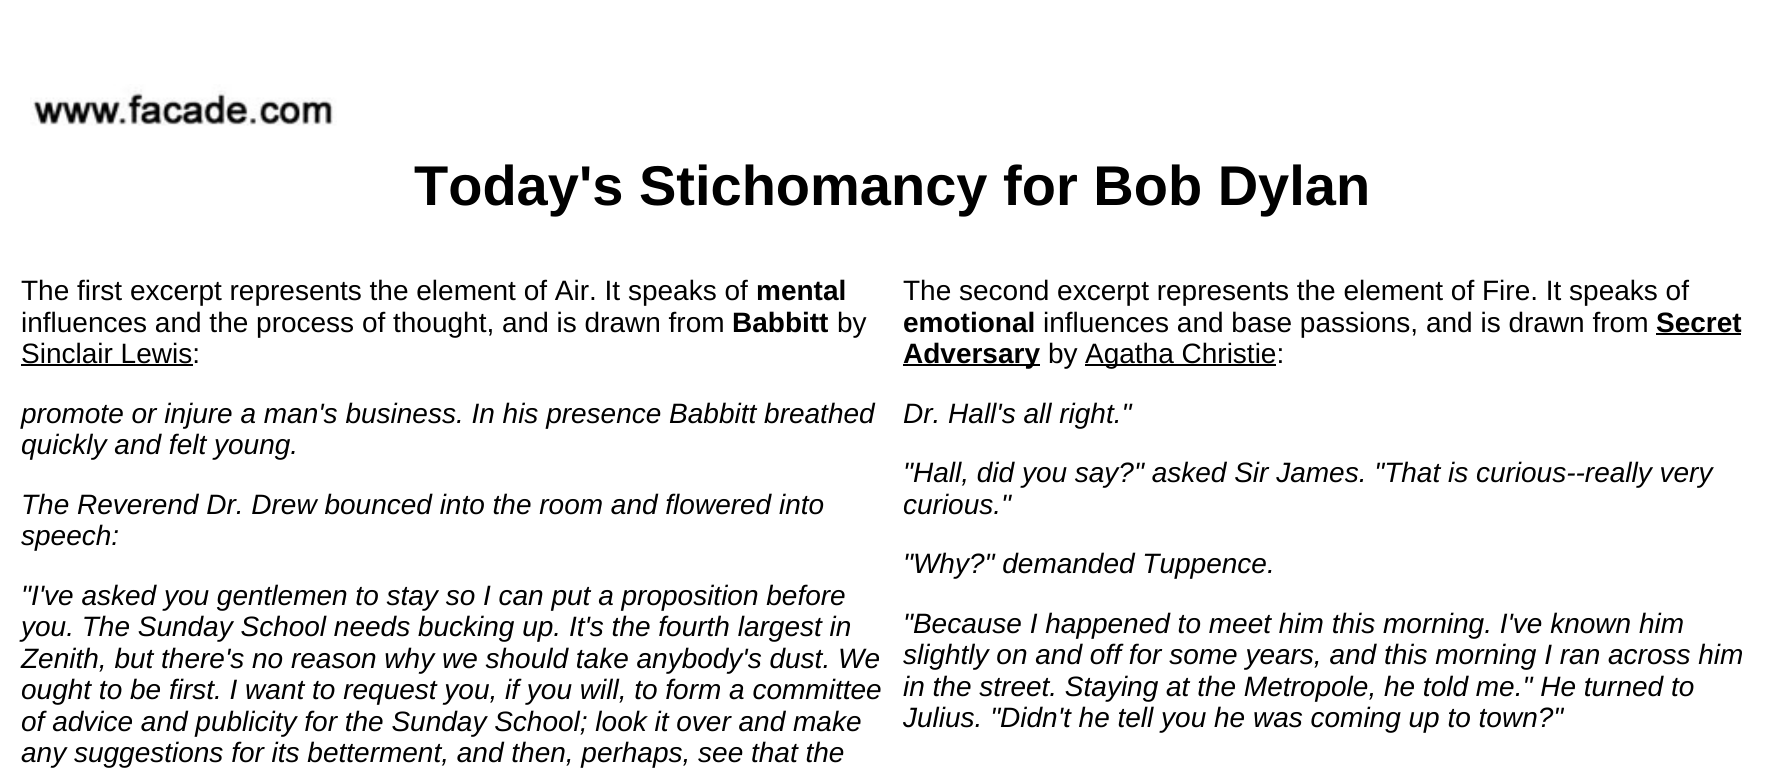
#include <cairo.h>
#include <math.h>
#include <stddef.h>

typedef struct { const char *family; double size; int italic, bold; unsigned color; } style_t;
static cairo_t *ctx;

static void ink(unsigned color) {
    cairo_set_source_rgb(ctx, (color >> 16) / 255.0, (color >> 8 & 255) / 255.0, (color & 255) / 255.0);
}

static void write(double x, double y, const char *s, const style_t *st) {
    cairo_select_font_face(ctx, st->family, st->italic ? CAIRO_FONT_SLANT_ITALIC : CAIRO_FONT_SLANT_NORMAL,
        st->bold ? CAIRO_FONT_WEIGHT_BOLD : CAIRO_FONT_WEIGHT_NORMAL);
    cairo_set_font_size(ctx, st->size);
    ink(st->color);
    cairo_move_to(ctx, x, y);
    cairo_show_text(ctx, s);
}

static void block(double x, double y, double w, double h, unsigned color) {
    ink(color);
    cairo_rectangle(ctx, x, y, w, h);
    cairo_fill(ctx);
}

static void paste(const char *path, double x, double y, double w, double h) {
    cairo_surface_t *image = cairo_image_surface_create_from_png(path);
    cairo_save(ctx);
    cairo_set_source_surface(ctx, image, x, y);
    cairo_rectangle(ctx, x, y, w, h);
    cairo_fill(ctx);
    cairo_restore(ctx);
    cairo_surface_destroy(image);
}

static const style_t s1 = {"Liberation Sans", 56, 0, 1, 0x000000};
static const style_t s2 = {"Liberation Sans", 28, 0, 0, 0x000000};
static const style_t s3 = {"Liberation Sans", 28, 0, 1, 0x000000};
static const style_t s4 = {"Liberation Sans", 28, 1, 0, 0x000000};

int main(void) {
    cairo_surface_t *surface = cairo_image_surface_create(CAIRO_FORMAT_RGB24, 1785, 774);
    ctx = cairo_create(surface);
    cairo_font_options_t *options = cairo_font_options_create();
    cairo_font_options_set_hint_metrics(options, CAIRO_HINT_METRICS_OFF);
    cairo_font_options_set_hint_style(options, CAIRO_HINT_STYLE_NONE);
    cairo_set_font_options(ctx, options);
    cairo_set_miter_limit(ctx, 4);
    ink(0xffffff);
    cairo_paint(ctx);
    paste("pic1.png", 30, 84, 307, 42);
    write(414, 205, "Today's Stichomancy for Bob Dylan", &s1);
    write(21, 300, "The first excerpt represents the element of Air. It speaks of", &s2);
    write(756, 300, "mental", &s3);
    write(21, 332, "influences and the process of thought, and is drawn from", &s2);
    write(732, 332, "Babbitt", &s3);
    write(837, 332, "by", &s2);
    write(21, 363, "Sinclair Lewis:", &s2);
    block(21, 364, 172, 2, 0x000000);
    write(21, 423, "promote or injure a man's business. In his presence Babbitt breathed", &s4);
    write(21, 454, "quickly and felt young.", &s4);
    write(21, 514, "The Reverend Dr. Drew bounced into the room and flowered into", &s4);
    write(21, 545, "speech:", &s4);
    write(21, 605, "\"I've asked you gentlemen to stay so I can put a proposition before", &s4);
    write(21, 636, "you. The Sunday School needs bucking up. It's the fourth largest in", &s4);
    write(21, 668, "Zenith, but there's no reason why we should take anybody's dust. We", &s4);
    write(21, 699, "ought to be first. I want to request you, if you will, to form a committee", &s4);
    write(21, 731, "of advice and publicity for the Sunday School; look it over and make", &s4);
    write(21, 762, "any suggestions for its betterment, and then, perhaps, see that the", &s4);
    write(903, 300, "The second excerpt represents the element of Fire. It speaks of", &s2);
    write(903, 332, "emotional", &s3);
    write(1043, 332, "influences and base passions, and is drawn from", &s2);
    write(1656, 332, "Secret", &s3);
    block(1656, 333, 85, 2, 0x000000);
    block(903, 364, 137, 2, 0x000000);
    write(903, 363, "Adversary", &s3);
    write(1048, 363, "by", &s2);
    block(1085, 364, 191, 2, 0x000000);
    write(1085, 363, "Agatha Christie:", &s2);
    write(903, 423, "Dr. Hall's all right.\"", &s4);
    write(903, 482, "\"Hall, did you say?\" asked Sir James. \"That is curious--really very", &s4);
    write(903, 514, "curious.\"", &s4);
    write(903, 573, "\"Why?\" demanded Tuppence.", &s4);
    write(903, 633, "\"Because I happened to meet him this morning. I've known him", &s4);
    write(903, 664, "slightly on and off for some years, and this morning I ran across him", &s4);
    write(903, 696, "in the street. Staying at the Metropole, he told me.\" He turned to", &s4);
    write(903, 727, "Julius. \"Didn't he tell you he was coming up to town?\"", &s4);
    cairo_surface_write_to_png(surface, "screenshot.png");
    cairo_font_options_destroy(options);
    cairo_destroy(ctx);
    cairo_surface_destroy(surface);
    return 0;
}
